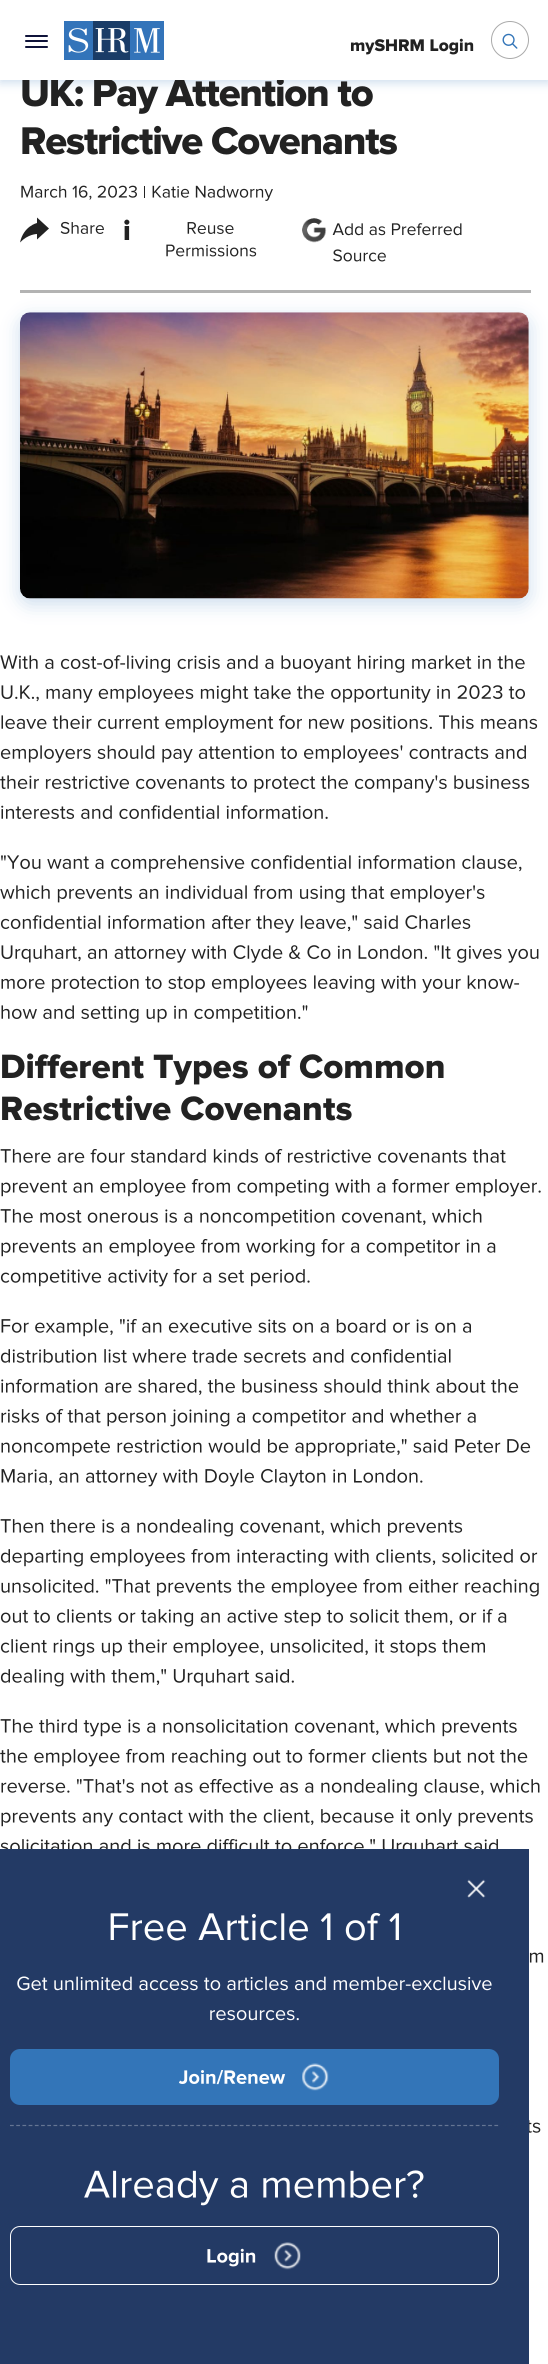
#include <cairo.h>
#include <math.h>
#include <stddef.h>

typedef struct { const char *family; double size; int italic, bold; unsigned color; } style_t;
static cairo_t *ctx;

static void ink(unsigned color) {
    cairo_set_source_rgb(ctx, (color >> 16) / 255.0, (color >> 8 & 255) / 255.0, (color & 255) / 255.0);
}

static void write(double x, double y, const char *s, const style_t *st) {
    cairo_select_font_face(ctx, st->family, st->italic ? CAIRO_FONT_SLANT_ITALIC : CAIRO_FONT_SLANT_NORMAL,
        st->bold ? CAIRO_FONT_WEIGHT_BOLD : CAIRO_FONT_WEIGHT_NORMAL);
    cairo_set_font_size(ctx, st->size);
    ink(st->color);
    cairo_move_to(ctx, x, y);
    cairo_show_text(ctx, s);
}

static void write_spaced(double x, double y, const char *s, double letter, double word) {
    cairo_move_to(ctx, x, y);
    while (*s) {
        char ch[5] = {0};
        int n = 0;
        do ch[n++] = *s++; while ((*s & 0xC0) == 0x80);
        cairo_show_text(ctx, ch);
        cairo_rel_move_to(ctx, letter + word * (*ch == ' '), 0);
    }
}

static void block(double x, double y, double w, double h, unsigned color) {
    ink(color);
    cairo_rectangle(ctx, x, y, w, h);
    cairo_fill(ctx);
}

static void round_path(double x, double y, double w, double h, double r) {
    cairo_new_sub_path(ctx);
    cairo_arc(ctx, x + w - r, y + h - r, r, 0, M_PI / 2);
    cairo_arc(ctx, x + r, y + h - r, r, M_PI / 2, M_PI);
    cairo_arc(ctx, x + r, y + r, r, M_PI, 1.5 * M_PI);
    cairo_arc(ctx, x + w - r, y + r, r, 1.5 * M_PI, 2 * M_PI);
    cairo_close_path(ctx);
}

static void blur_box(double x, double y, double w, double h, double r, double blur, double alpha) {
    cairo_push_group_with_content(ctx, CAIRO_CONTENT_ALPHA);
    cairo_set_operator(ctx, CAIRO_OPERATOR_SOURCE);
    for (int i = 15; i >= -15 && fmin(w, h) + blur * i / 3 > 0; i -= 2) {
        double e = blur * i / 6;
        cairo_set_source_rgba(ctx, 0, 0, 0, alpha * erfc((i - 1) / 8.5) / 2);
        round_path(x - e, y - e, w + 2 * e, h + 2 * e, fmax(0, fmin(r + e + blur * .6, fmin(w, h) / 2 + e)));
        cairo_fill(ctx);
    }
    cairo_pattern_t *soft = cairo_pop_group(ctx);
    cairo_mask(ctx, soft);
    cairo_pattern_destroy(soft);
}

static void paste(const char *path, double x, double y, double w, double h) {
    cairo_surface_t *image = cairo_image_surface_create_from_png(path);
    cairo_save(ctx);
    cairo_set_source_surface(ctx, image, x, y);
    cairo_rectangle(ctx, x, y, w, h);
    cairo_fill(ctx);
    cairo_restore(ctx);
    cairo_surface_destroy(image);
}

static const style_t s1 = {"Proxima Nova ExtraBold", 17.5, 0, 0, 0x222222};
static const style_t s2 = {"Proxima Nova ExtraBold", 29, 0, 0, 0x222222};
static const style_t s3 = {"Proxima Nova ExtraBold", 35, 0, 0, 0x222222};

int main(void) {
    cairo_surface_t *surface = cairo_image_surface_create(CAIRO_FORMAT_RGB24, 548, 2364);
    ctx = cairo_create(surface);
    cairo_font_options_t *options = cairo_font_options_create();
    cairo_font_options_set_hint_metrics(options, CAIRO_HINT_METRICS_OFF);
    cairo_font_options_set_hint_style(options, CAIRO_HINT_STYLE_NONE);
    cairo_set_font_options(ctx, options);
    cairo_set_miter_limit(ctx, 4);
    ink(0xffffff);
    cairo_paint(ctx);
    ink(0x3375b8);
    blur_box(0, 3, 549, 80, 0, 5, 0.24);
    cairo_select_font_face(ctx, "Proxima Nova ExtraBold", CAIRO_FONT_SLANT_NORMAL, CAIRO_FONT_WEIGHT_NORMAL);
    cairo_set_font_size(ctx, 40);
    ink(0x222222);
    write_spaced(20, 106, "UK: Pay Attention to", -1.25, 0);
    block(0, 0, 548, 80, 0xffffff);
    ink(0x0f133a);
    round_path(25, 35, 23, 2, 1);
    cairo_fill(ctx);
    round_path(25, 40, 23, 2, 1);
    cairo_fill(ctx);
    round_path(25, 46, 23, 2, 1);
    cairo_fill(ctx);
    paste("pic1.png", 64, 21, 100, 39);
    cairo_arc(ctx, 510, 40, 18.5, 0, 2 * M_PI);
    ink(0xaaaaaa);
    cairo_set_line_width(ctx, 1);
    cairo_stroke(ctx);
    write(350, 51, "mySHRM Login", &s1);
    paste("pic2.png", 502, 33, 16, 16);
    cairo_set_font_size(ctx, 40);
    write_spaced(20, 154, "Restrictive Covenants", -1.25, 0);
    paste("pic3.png", 21, 185, 116, 15);
    block(144, 186, 1, 12, 0x222222);
    paste("pic4.png", 152, 185, 121, 16);
    cairo_new_path(ctx);
    cairo_move_to(ctx, 37, 239.5);
    cairo_line_to(ctx, 37, 234);
    cairo_curve_to(ctx, 37, 234, 28, 234, 20, 242.5);
    cairo_curve_to(ctx, 23.5, 226, 37, 223, 37, 223);
    cairo_line_to(ctx, 37, 217.5);
    cairo_line_to(ctx, 49, 228.5);
    cairo_close_path(ctx);
    cairo_fill(ctx);
    paste("pic5.png", 60, 221, 44, 13);
    write(123, 240, "i", &s2);
    paste("pic6.png", 187, 222, 47, 12);
    paste("pic7.png", 166, 244, 91, 13);
    paste("pic8.png", 302, 218, 25, 25);
    paste("pic9.png", 332, 223, 130, 13);
    paste("pic10.png", 333, 249, 53, 13);
    block(20, 290, 511, 3, 0xb3b3b3);
    ink(0x3375b8);
    blur_box(20, 318, 509, 286, 10, 9.5, 0.25);
    paste("pic11.png", 20, 312, 509, 287);
    paste("pic12.png", 0, 655, 525, 18);
    paste("pic13.png", 1, 685, 524, 18);
    paste("pic14.png", 1, 715, 537, 18);
    paste("pic15.png", 0, 745, 526, 18);
    paste("pic16.png", 0, 775, 530, 18);
    paste("pic17.png", 1, 805, 327, 14);
    paste("pic18.png", 1, 855, 521, 18);
    paste("pic19.png", 0, 885, 485, 18);
    paste("pic20.png", 0, 915, 471, 18);
    paste("pic21.png", 1, 945, 538, 18);
    paste("pic22.png", 1, 975, 519, 18);
    paste("pic23.png", 1, 1005, 307, 18);
    write(0, 1078, "Different Types of Common", &s3);
    write(0, 1120, "Restrictive Covenants", &s3);
    paste("pic24.png", 0, 1149, 506, 14);
    paste("pic25.png", 1, 1179, 540, 18);
    paste("pic26.png", 0, 1209, 482, 18);
    paste("pic27.png", 1, 1239, 495, 18);
    paste("pic28.png", 0, 1269, 310, 18);
    paste("pic29.png", 1, 1319, 470, 18);
    paste("pic30.png", 0, 1349, 451, 14);
    paste("pic31.png", 1, 1379, 518, 16);
    paste("pic32.png", 1, 1409, 475, 18);
    paste("pic33.png", 1, 1439, 530, 18);
    paste("pic34.png", 1, 1468, 422, 19);
    paste("pic35.png", 0, 1519, 463, 18);
    paste("pic36.png", 0, 1549, 538, 18);
    paste("pic37.png", 1, 1579, 538, 18);
    paste("pic38.png", 0, 1609, 507, 18);
    paste("pic39.png", 0, 1639, 485, 18);
    paste("pic40.png", 0, 1669, 294, 18);
    paste("pic41.png", 0, 1719, 517, 18);
    paste("pic42.png", 0, 1749, 528, 18);
    paste("pic43.png", 1, 1779, 539, 18);
    paste("pic44.png", 1, 1809, 532, 18);
    paste("pic45.png", 1, 1839, 497, 10);
    paste("pic46.png", 529, 1952, 15, 11);
    paste("pic47.png", 529, 2120, 12, 13);
    block(0, 1849, 529, 515, 0x233a65);
    paste("pic48.png", 467, 1879, 19, 19);
    cairo_new_path(ctx);
    cairo_move_to(ctx, 10, 2125.5);
    cairo_line_to(ctx, 499, 2125.5);
    ink(0x657593);
    cairo_set_line_width(ctx, 1.2);
    cairo_set_dash(ctx, (double[]){3.75, 2.46}, 2, 0);
    cairo_stroke(ctx);
    paste("pic49.png", 110, 1913, 198, 28);
    paste("pic50.png", 320, 1912, 79, 29);
    paste("pic51.png", 17, 1976, 475, 15);
    paste("pic52.png", 210, 2010, 89, 11);
    ink(0x3375b8);
    round_path(10, 2049, 489, 56, 10);
    cairo_fill(ctx);
    paste("pic53.png", 179, 2070, 107, 15);
    paste("pic54.png", 302, 2063, 27, 28);
    paste("pic55.png", 84, 2170, 340, 36);
    round_path(10.5, 2226.5, 488, 58, 9.5);
    ink(0xffffff);
    cairo_set_line_width(ctx, 1);
    cairo_set_dash(ctx, NULL, 0, 0);
    cairo_stroke(ctx);
    paste("pic56.png", 207, 2248, 49, 19);
    paste("pic57.png", 274, 2242, 27, 28);
    cairo_surface_write_to_png(surface, "screenshot.png");
    cairo_font_options_destroy(options);
    cairo_destroy(ctx);
    cairo_surface_destroy(surface);
    return 0;
}
